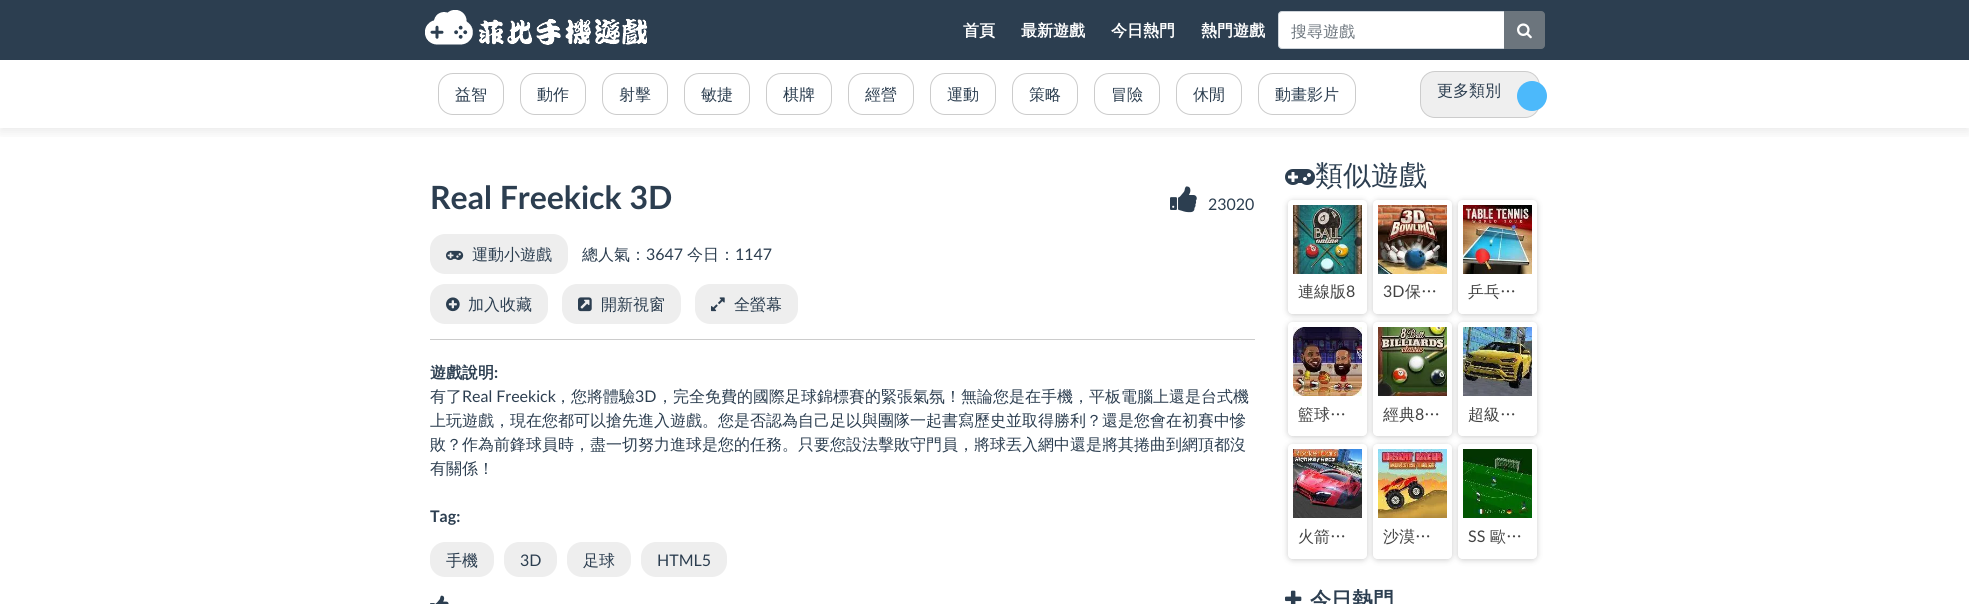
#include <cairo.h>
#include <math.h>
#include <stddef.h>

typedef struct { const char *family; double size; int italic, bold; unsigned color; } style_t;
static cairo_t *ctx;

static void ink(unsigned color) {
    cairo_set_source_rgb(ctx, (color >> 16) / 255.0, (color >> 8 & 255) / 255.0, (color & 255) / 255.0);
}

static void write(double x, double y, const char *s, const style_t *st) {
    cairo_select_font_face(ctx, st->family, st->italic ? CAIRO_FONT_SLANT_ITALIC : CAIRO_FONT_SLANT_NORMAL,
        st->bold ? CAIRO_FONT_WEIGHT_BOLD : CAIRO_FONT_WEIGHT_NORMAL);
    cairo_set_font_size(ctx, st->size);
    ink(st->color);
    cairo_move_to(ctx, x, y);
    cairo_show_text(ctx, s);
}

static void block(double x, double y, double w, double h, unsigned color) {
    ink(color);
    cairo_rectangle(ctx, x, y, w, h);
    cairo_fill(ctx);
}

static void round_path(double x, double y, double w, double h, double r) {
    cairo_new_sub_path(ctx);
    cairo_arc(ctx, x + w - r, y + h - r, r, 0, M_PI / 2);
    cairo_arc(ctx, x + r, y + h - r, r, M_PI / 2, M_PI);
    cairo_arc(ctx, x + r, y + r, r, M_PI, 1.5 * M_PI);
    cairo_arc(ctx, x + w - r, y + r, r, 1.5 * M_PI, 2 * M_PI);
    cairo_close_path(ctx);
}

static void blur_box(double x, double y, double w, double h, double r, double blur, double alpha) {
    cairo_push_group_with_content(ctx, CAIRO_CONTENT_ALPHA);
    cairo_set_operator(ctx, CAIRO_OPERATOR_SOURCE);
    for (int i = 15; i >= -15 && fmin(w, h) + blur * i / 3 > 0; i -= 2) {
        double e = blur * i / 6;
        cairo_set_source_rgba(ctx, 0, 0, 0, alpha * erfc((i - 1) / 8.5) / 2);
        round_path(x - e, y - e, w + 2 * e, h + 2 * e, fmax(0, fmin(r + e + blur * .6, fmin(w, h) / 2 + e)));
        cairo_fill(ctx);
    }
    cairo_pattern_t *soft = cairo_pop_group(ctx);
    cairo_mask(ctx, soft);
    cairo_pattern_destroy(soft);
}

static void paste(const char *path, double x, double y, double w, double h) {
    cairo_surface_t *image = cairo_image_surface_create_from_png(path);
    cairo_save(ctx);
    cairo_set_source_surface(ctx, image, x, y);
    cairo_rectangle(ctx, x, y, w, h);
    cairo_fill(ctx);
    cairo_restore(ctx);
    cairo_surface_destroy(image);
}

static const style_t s1 = {"WenQuanYi Zen Hei", 16, 0, 1, 0xffffff};
static const style_t s2 = {"WenQuanYi Zen Hei Medium", 16, 0, 0, 0x6c757d};
static const style_t s3 = {"WenQuanYi Zen Hei Medium", 16, 0, 0, 0x2c3e50};
static const style_t s4 = {"Lato", 32, 0, 1, 0x2c3e50};
static const style_t s5 = {"Lato", 16, 0, 0, 0x2c3e50};
static const style_t s6 = {"WenQuanYi Zen Hei", 16, 0, 1, 0x2c3e50};
static const style_t s7 = {"Lato", 16, 0, 1, 0x2c3e50};
static const style_t s8 = {"WenQuanYi Zen Hei Medium", 28, 0, 0, 0x2c3e50};
static const style_t s9 = {"WenQuanYi Zen Hei Medium", 16, 0, 0, 0x434343};
static const style_t s10 = {"Lato", 16, 0, 0, 0x434343};
static const style_t s11 = {"WenQuanYi Zen Hei", 21, 0, 1, 0x2c3e50};

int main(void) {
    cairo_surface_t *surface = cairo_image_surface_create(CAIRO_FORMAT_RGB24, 1969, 604);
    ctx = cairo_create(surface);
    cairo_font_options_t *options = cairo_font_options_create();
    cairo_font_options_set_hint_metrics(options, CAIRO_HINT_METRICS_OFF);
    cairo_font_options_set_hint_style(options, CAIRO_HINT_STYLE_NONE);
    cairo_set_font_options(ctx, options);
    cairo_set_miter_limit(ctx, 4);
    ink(0xffffff);
    cairo_paint(ctx);
    cairo_save(ctx);
    cairo_rectangle(ctx, 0, 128, 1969, 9);
    cairo_clip(ctx);
    ink(0x2b2b2b);
    blur_box(0, 64, 1969, 68, 0, 6, 0.1);
    cairo_restore(ctx);
    block(0, 0, 1969, 60, 0x2c3e50);
    paste("pic1.png", 425, 10, 223, 35);
    write(963, 36, "首頁", &s1);
    write(1021, 36, "最新遊戲", &s1);
    write(1111, 36, "今日熱門", &s1);
    write(1201, 36, "熱門遊戲", &s1);
    cairo_new_path(ctx);
    cairo_move_to(ctx, 1282, 11.5);
    cairo_line_to(ctx, 1504.5, 11.5);
    cairo_line_to(ctx, 1504.5, 48.5);
    cairo_line_to(ctx, 1282, 48.5);
    cairo_curve_to(ctx, 1280, 48.5, 1278.5, 47, 1278.5, 45);
    cairo_line_to(ctx, 1278.5, 15);
    cairo_curve_to(ctx, 1278.5, 13, 1280, 11.5, 1282, 11.5);
    cairo_close_path(ctx);
    cairo_fill_preserve(ctx);
    ink(0xced4da);
    cairo_set_line_width(ctx, 1);
    cairo_stroke(ctx);
    write(1291, 37, "搜尋遊戲", &s2);
    cairo_new_path(ctx);
    cairo_move_to(ctx, 1504.5, 11.5);
    cairo_line_to(ctx, 1541, 11.5);
    cairo_curve_to(ctx, 1543, 11.5, 1544.5, 13, 1544.5, 15);
    cairo_line_to(ctx, 1544.5, 45);
    cairo_curve_to(ctx, 1544.5, 47, 1543, 48.5, 1541, 48.5);
    cairo_line_to(ctx, 1504.5, 48.5);
    cairo_close_path(ctx);
    cairo_fill_preserve(ctx);
    cairo_stroke(ctx);
    paste("pic2.png", 1517, 23, 15, 16);
    round_path(438.5, 73.5, 65, 41, 14.5);
    ink(0xcccccc);
    cairo_stroke(ctx);
    write(455, 100, "益智", &s3);
    round_path(520.5, 73.5, 65, 41, 14.5);
    ink(0xcccccc);
    cairo_stroke(ctx);
    write(537, 100, "動作", &s3);
    round_path(602.5, 73.5, 65, 41, 14.5);
    ink(0xcccccc);
    cairo_stroke(ctx);
    write(619, 100, "射擊", &s3);
    round_path(684.5, 73.5, 65, 41, 14.5);
    ink(0xcccccc);
    cairo_stroke(ctx);
    write(701, 100, "敏捷", &s3);
    round_path(766.5, 73.5, 65, 41, 14.5);
    ink(0xcccccc);
    cairo_stroke(ctx);
    write(783, 100, "棋牌", &s3);
    round_path(848.5, 73.5, 65, 41, 14.5);
    ink(0xcccccc);
    cairo_stroke(ctx);
    write(865, 100, "經營", &s3);
    round_path(930.5, 73.5, 65, 41, 14.5);
    ink(0xcccccc);
    cairo_stroke(ctx);
    write(947, 100, "運動", &s3);
    round_path(1012.5, 73.5, 65, 41, 14.5);
    ink(0xcccccc);
    cairo_stroke(ctx);
    write(1029, 100, "策略", &s3);
    round_path(1094.5, 73.5, 65, 41, 14.5);
    ink(0xcccccc);
    cairo_stroke(ctx);
    write(1111, 100, "冒險", &s3);
    round_path(1176.5, 73.5, 65, 41, 14.5);
    ink(0xcccccc);
    cairo_stroke(ctx);
    write(1193, 100, "休閒", &s3);
    round_path(1258.5, 73.5, 97, 41, 14.5);
    ink(0xcccccc);
    cairo_stroke(ctx);
    write(1275, 100, "動畫影片", &s3);
    ink(0xefefef);
    round_path(1420.5, 71.5, 119, 46, 14.5);
    cairo_fill_preserve(ctx);
    ink(0xcccccc);
    cairo_stroke(ctx);
    write(1437, 96, "更多類別", &s3);
    ink(0x4cb9fb);
    cairo_new_path(ctx);
    cairo_arc(ctx, 1532, 96, 15, 0, 2 * M_PI);
    cairo_fill(ctx);
    block(430, 339, 825, 1, 0xcccccc);
    write(430, 209, "Real Freekick 3D", &s4);
    paste("pic3.png", 1170, 186, 27, 27);
    write(1208, 210, "23020", &s5);
    ink(0xeeeeee);
    round_path(430, 234, 138, 40, 15);
    cairo_fill(ctx);
    paste("pic4.png", 446, 250, 18, 10);
    write(472, 260, "運動小遊戲", &s3);
    write(582, 260, "總人氣：", &s3);
    write(646, 260, "3647", &s5);
    write(687, 260, "今日：", &s3);
    write(735, 260, "1147", &s5);
    ink(0xeeeeee);
    round_path(430, 284, 118, 40, 15);
    cairo_fill(ctx);
    paste("pic5.png", 446, 297, 14, 15);
    write(468, 310, "加入收藏", &s3);
    ink(0xeeeeee);
    round_path(562, 284, 119, 40, 15);
    cairo_fill(ctx);
    paste("pic6.png", 578, 297, 14, 15);
    write(601, 310, "開新視窗", &s3);
    ink(0xeeeeee);
    round_path(695, 284, 103, 40, 15);
    cairo_fill(ctx);
    paste("pic7.png", 711, 297, 14, 15);
    write(734, 310, "全螢幕", &s3);
    write(430, 378, "遊戲說明", &s6);
    write(494, 378, ":", &s7);
    write(430, 402, "有了", &s3);
    write(462, 402, "Real Freekick", &s5);
    write(555, 402, "，您將體驗", &s3);
    write(635, 402, "3D", &s5);
    write(657, 402, "，完全免費的國際足球錦標賽的緊張氣氛！無論您是在手機，平板電腦上還是台式機", &s3);
    write(430, 426, "上玩遊戲，現在您都可以搶先進入遊戲。您是否認為自己足以與團隊一起書寫歷史並取得勝利？還是您會在初賽中慘", &s3);
    write(430, 450, "敗？作為前鋒球員時，盡一切努力進球是您的任務。只要您設法擊敗守門員，將球丟入網中還是將其捲曲到網頂都沒", &s3);
    write(430, 474, "有關係！", &s3);
    write(430, 522, "Tag:", &s7);
    ink(0xeeeeee);
    round_path(430, 542, 64, 35, 15);
    cairo_fill(ctx);
    write(446, 566, "手機", &s3);
    ink(0xeeeeee);
    round_path(504, 542, 53, 35, 15);
    cairo_fill(ctx);
    write(520, 566, "3D", &s5);
    ink(0xeeeeee);
    round_path(567, 542, 64, 35, 15);
    cairo_fill(ctx);
    write(583, 566, "足球", &s3);
    ink(0xeeeeee);
    round_path(641, 542, 86, 35, 15);
    cairo_fill(ctx);
    write(657, 566, "HTML5", &s5);
    paste("pic8.png", 430, 595, 19, 9);
    paste("pic9.png", 1285, 169, 30, 16);
    write(1315, 185, "類似遊戲", &s8);
    cairo_save(ctx);
    cairo_set_fill_rule(ctx, CAIRO_FILL_RULE_EVEN_ODD);
    cairo_new_path(ctx);
    cairo_move_to(ctx, 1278, 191);
    cairo_line_to(ctx, 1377, 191);
    cairo_line_to(ctx, 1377, 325);
    cairo_line_to(ctx, 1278, 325);
    cairo_close_path(ctx);
    cairo_move_to(ctx, 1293, 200);
    cairo_line_to(ctx, 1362, 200);
    cairo_curve_to(ctx, 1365, 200, 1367, 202, 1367, 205);
    cairo_line_to(ctx, 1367, 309);
    cairo_curve_to(ctx, 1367, 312, 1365, 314, 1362, 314);
    cairo_line_to(ctx, 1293, 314);
    cairo_curve_to(ctx, 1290, 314, 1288, 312, 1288, 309);
    cairo_line_to(ctx, 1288, 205);
    cairo_curve_to(ctx, 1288, 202, 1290, 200, 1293, 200);
    cairo_close_path(ctx);
    cairo_clip(ctx);
    ink(0x323232);
    blur_box(1288, 201, 79, 114, 5, 3, 0.25);
    cairo_restore(ctx);
    paste("pic10.png", 1293, 205, 69, 69);
    write(1298, 297, "連線版", &s9);
    write(1346, 297, "8", &s10);
    cairo_save(ctx);
    cairo_set_fill_rule(ctx, CAIRO_FILL_RULE_EVEN_ODD);
    cairo_new_path(ctx);
    cairo_move_to(ctx, 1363, 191);
    cairo_line_to(ctx, 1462, 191);
    cairo_line_to(ctx, 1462, 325);
    cairo_line_to(ctx, 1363, 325);
    cairo_close_path(ctx);
    cairo_move_to(ctx, 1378, 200);
    cairo_line_to(ctx, 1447, 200);
    cairo_curve_to(ctx, 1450, 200, 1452, 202, 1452, 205);
    cairo_line_to(ctx, 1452, 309);
    cairo_curve_to(ctx, 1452, 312, 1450, 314, 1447, 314);
    cairo_line_to(ctx, 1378, 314);
    cairo_curve_to(ctx, 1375, 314, 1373, 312, 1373, 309);
    cairo_line_to(ctx, 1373, 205);
    cairo_curve_to(ctx, 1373, 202, 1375, 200, 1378, 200);
    cairo_close_path(ctx);
    cairo_clip(ctx);
    ink(0x323232);
    blur_box(1373, 201, 79, 114, 5, 3, 0.25);
    cairo_restore(ctx);
    paste("pic11.png", 1378, 205, 69, 69);
    write(1383, 297, "3D", &s10);
    write(1405, 297, "保…", &s9);
    cairo_save(ctx);
    cairo_set_fill_rule(ctx, CAIRO_FILL_RULE_EVEN_ODD);
    cairo_new_path(ctx);
    cairo_move_to(ctx, 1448, 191);
    cairo_line_to(ctx, 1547, 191);
    cairo_line_to(ctx, 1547, 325);
    cairo_line_to(ctx, 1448, 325);
    cairo_close_path(ctx);
    cairo_move_to(ctx, 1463, 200);
    cairo_line_to(ctx, 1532, 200);
    cairo_curve_to(ctx, 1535, 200, 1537, 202, 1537, 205);
    cairo_line_to(ctx, 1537, 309);
    cairo_curve_to(ctx, 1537, 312, 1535, 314, 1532, 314);
    cairo_line_to(ctx, 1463, 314);
    cairo_curve_to(ctx, 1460, 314, 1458, 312, 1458, 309);
    cairo_line_to(ctx, 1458, 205);
    cairo_curve_to(ctx, 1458, 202, 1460, 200, 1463, 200);
    cairo_close_path(ctx);
    cairo_clip(ctx);
    ink(0x323232);
    blur_box(1458, 201, 79, 114, 5, 3, 0.25);
    cairo_restore(ctx);
    paste("pic12.png", 1463, 205, 69, 69);
    write(1468, 297, "乒乓…", &s9);
    cairo_save(ctx);
    cairo_set_fill_rule(ctx, CAIRO_FILL_RULE_EVEN_ODD);
    cairo_new_path(ctx);
    cairo_move_to(ctx, 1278, 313);
    cairo_line_to(ctx, 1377, 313);
    cairo_line_to(ctx, 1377, 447);
    cairo_line_to(ctx, 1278, 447);
    cairo_close_path(ctx);
    cairo_move_to(ctx, 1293, 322);
    cairo_line_to(ctx, 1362, 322);
    cairo_curve_to(ctx, 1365, 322, 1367, 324, 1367, 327);
    cairo_line_to(ctx, 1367, 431);
    cairo_curve_to(ctx, 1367, 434, 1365, 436, 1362, 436);
    cairo_line_to(ctx, 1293, 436);
    cairo_curve_to(ctx, 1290, 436, 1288, 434, 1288, 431);
    cairo_line_to(ctx, 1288, 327);
    cairo_curve_to(ctx, 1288, 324, 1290, 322, 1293, 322);
    cairo_close_path(ctx);
    cairo_clip(ctx);
    ink(0x323232);
    blur_box(1288, 323, 79, 114, 5, 3, 0.25);
    cairo_restore(ctx);
    paste("pic13.png", 1293, 327, 69, 69);
    write(1298, 420, "籃球…", &s9);
    cairo_save(ctx);
    cairo_set_fill_rule(ctx, CAIRO_FILL_RULE_EVEN_ODD);
    cairo_new_path(ctx);
    cairo_move_to(ctx, 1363, 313);
    cairo_line_to(ctx, 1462, 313);
    cairo_line_to(ctx, 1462, 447);
    cairo_line_to(ctx, 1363, 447);
    cairo_close_path(ctx);
    cairo_move_to(ctx, 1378, 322);
    cairo_line_to(ctx, 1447, 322);
    cairo_curve_to(ctx, 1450, 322, 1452, 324, 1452, 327);
    cairo_line_to(ctx, 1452, 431);
    cairo_curve_to(ctx, 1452, 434, 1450, 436, 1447, 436);
    cairo_line_to(ctx, 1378, 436);
    cairo_curve_to(ctx, 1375, 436, 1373, 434, 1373, 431);
    cairo_line_to(ctx, 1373, 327);
    cairo_curve_to(ctx, 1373, 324, 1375, 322, 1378, 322);
    cairo_close_path(ctx);
    cairo_clip(ctx);
    ink(0x323232);
    blur_box(1373, 323, 79, 114, 5, 3, 0.25);
    cairo_restore(ctx);
    paste("pic14.png", 1378, 327, 69, 69);
    write(1383, 420, "經典", &s9);
    write(1415, 420, "8", &s10);
    write(1424, 420, "…", &s9);
    cairo_save(ctx);
    cairo_set_fill_rule(ctx, CAIRO_FILL_RULE_EVEN_ODD);
    cairo_new_path(ctx);
    cairo_move_to(ctx, 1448, 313);
    cairo_line_to(ctx, 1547, 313);
    cairo_line_to(ctx, 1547, 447);
    cairo_line_to(ctx, 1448, 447);
    cairo_close_path(ctx);
    cairo_move_to(ctx, 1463, 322);
    cairo_line_to(ctx, 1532, 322);
    cairo_curve_to(ctx, 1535, 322, 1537, 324, 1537, 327);
    cairo_line_to(ctx, 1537, 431);
    cairo_curve_to(ctx, 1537, 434, 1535, 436, 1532, 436);
    cairo_line_to(ctx, 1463, 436);
    cairo_curve_to(ctx, 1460, 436, 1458, 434, 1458, 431);
    cairo_line_to(ctx, 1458, 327);
    cairo_curve_to(ctx, 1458, 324, 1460, 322, 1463, 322);
    cairo_close_path(ctx);
    cairo_clip(ctx);
    ink(0x323232);
    blur_box(1458, 323, 79, 114, 5, 3, 0.25);
    cairo_restore(ctx);
    paste("pic15.png", 1463, 327, 69, 69);
    write(1468, 420, "超級…", &s9);
    cairo_save(ctx);
    cairo_set_fill_rule(ctx, CAIRO_FILL_RULE_EVEN_ODD);
    cairo_new_path(ctx);
    cairo_move_to(ctx, 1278, 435);
    cairo_line_to(ctx, 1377, 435);
    cairo_line_to(ctx, 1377, 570);
    cairo_line_to(ctx, 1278, 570);
    cairo_close_path(ctx);
    cairo_move_to(ctx, 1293, 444);
    cairo_line_to(ctx, 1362, 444);
    cairo_curve_to(ctx, 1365, 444, 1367, 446, 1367, 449);
    cairo_line_to(ctx, 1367, 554);
    cairo_curve_to(ctx, 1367, 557, 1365, 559, 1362, 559);
    cairo_line_to(ctx, 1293, 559);
    cairo_curve_to(ctx, 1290, 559, 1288, 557, 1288, 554);
    cairo_line_to(ctx, 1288, 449);
    cairo_curve_to(ctx, 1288, 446, 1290, 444, 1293, 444);
    cairo_close_path(ctx);
    cairo_clip(ctx);
    ink(0x323232);
    blur_box(1288, 445, 79, 115, 5, 3, 0.25);
    cairo_restore(ctx);
    paste("pic16.png", 1293, 449, 69, 69);
    write(1298, 542, "火箭…", &s9);
    cairo_save(ctx);
    cairo_set_fill_rule(ctx, CAIRO_FILL_RULE_EVEN_ODD);
    cairo_new_path(ctx);
    cairo_move_to(ctx, 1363, 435);
    cairo_line_to(ctx, 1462, 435);
    cairo_line_to(ctx, 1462, 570);
    cairo_line_to(ctx, 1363, 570);
    cairo_close_path(ctx);
    cairo_move_to(ctx, 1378, 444);
    cairo_line_to(ctx, 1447, 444);
    cairo_curve_to(ctx, 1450, 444, 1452, 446, 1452, 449);
    cairo_line_to(ctx, 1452, 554);
    cairo_curve_to(ctx, 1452, 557, 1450, 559, 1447, 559);
    cairo_line_to(ctx, 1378, 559);
    cairo_curve_to(ctx, 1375, 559, 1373, 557, 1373, 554);
    cairo_line_to(ctx, 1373, 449);
    cairo_curve_to(ctx, 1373, 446, 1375, 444, 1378, 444);
    cairo_close_path(ctx);
    cairo_clip(ctx);
    ink(0x323232);
    blur_box(1373, 445, 79, 115, 5, 3, 0.25);
    cairo_restore(ctx);
    paste("pic17.png", 1378, 449, 69, 69);
    write(1383, 542, "沙漠…", &s9);
    cairo_save(ctx);
    cairo_set_fill_rule(ctx, CAIRO_FILL_RULE_EVEN_ODD);
    cairo_new_path(ctx);
    cairo_move_to(ctx, 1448, 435);
    cairo_line_to(ctx, 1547, 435);
    cairo_line_to(ctx, 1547, 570);
    cairo_line_to(ctx, 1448, 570);
    cairo_close_path(ctx);
    cairo_move_to(ctx, 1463, 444);
    cairo_line_to(ctx, 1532, 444);
    cairo_curve_to(ctx, 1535, 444, 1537, 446, 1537, 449);
    cairo_line_to(ctx, 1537, 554);
    cairo_curve_to(ctx, 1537, 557, 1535, 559, 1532, 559);
    cairo_line_to(ctx, 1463, 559);
    cairo_curve_to(ctx, 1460, 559, 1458, 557, 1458, 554);
    cairo_line_to(ctx, 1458, 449);
    cairo_curve_to(ctx, 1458, 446, 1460, 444, 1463, 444);
    cairo_close_path(ctx);
    cairo_clip(ctx);
    ink(0x323232);
    blur_box(1458, 445, 79, 115, 5, 3, 0.25);
    cairo_restore(ctx);
    paste("pic18.png", 1463, 449, 69, 69);
    write(1468, 542, "SS", &s10);
    write(1490, 542, "歐…", &s9);
    paste("pic19.png", 1285, 590, 17, 14);
    write(1310, 607, "今日熱門", &s11);
    cairo_surface_write_to_png(surface, "screenshot.png");
    cairo_font_options_destroy(options);
    cairo_destroy(ctx);
    cairo_surface_destroy(surface);
    return 0;
}
